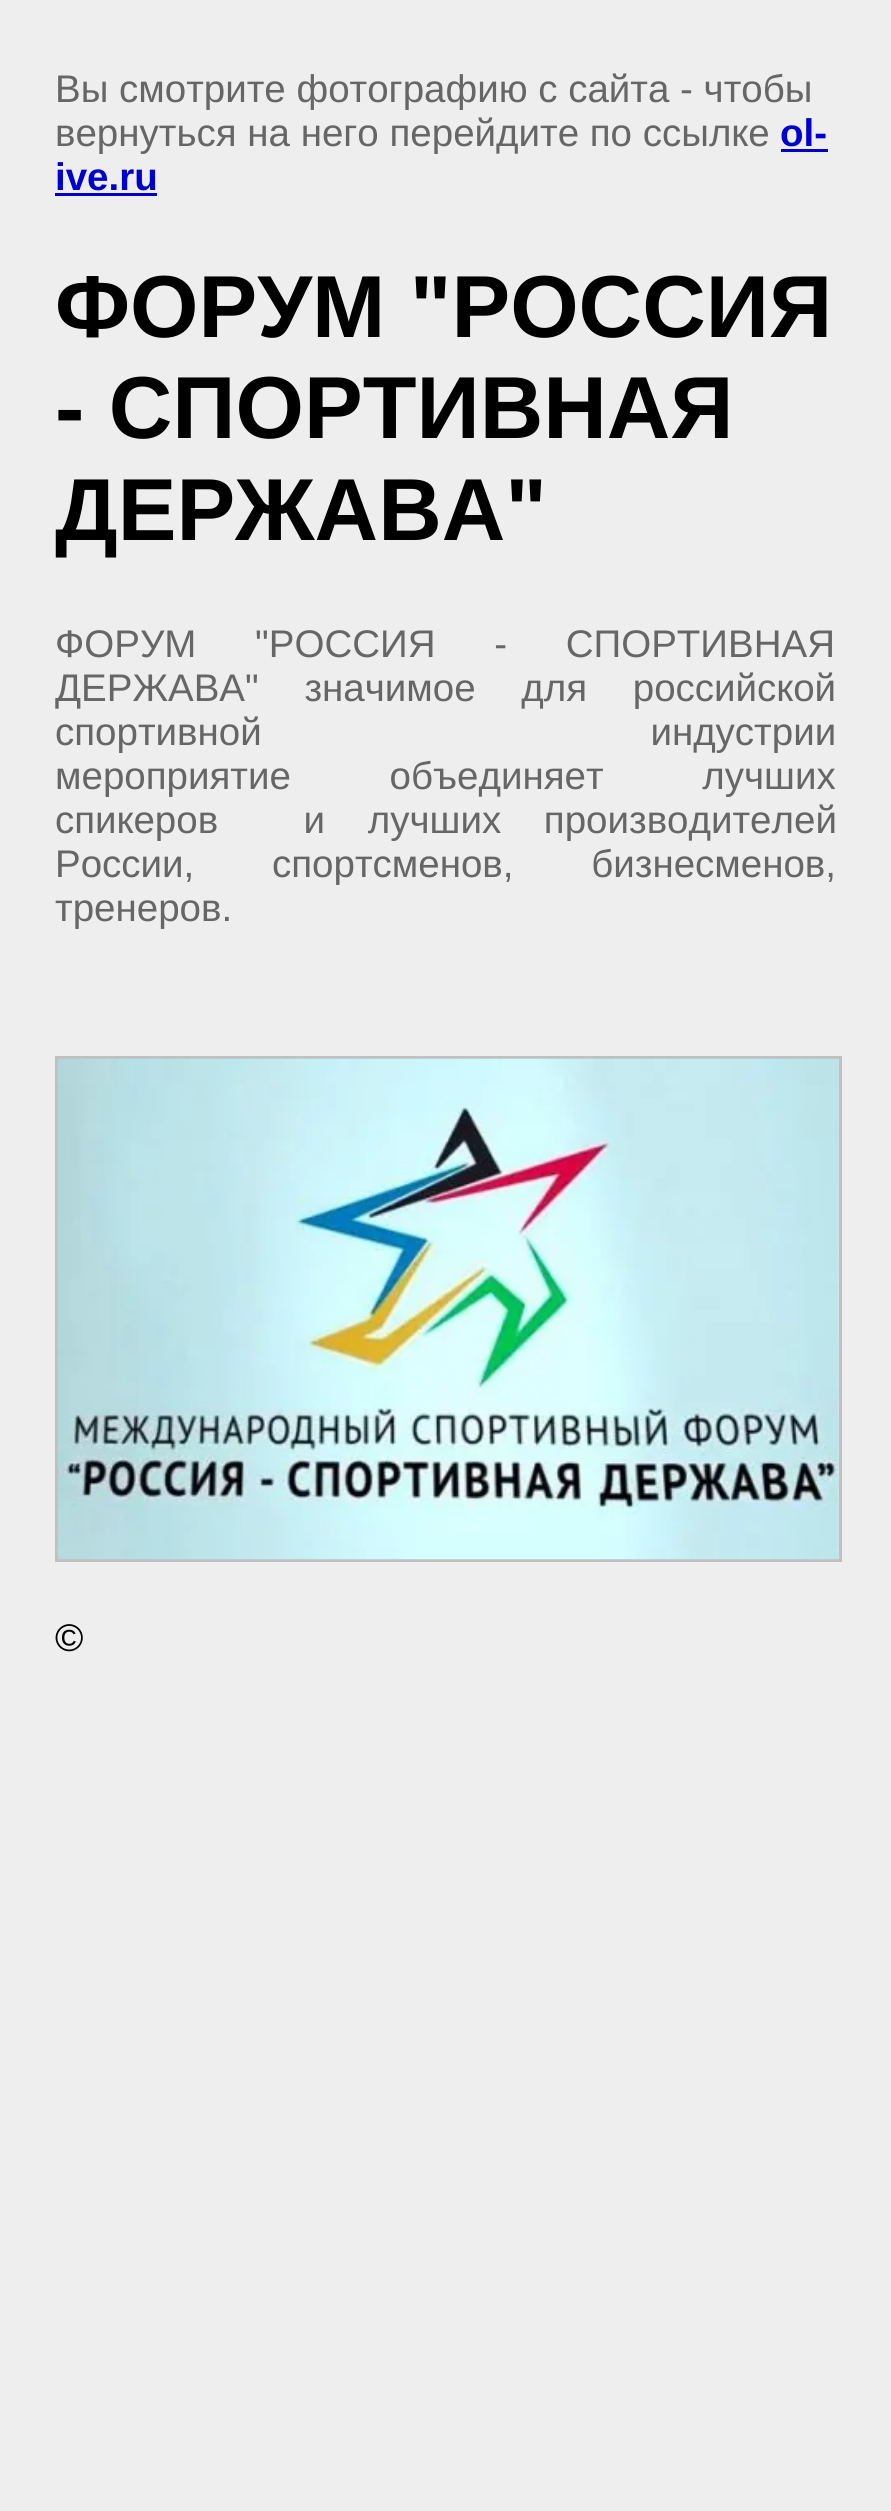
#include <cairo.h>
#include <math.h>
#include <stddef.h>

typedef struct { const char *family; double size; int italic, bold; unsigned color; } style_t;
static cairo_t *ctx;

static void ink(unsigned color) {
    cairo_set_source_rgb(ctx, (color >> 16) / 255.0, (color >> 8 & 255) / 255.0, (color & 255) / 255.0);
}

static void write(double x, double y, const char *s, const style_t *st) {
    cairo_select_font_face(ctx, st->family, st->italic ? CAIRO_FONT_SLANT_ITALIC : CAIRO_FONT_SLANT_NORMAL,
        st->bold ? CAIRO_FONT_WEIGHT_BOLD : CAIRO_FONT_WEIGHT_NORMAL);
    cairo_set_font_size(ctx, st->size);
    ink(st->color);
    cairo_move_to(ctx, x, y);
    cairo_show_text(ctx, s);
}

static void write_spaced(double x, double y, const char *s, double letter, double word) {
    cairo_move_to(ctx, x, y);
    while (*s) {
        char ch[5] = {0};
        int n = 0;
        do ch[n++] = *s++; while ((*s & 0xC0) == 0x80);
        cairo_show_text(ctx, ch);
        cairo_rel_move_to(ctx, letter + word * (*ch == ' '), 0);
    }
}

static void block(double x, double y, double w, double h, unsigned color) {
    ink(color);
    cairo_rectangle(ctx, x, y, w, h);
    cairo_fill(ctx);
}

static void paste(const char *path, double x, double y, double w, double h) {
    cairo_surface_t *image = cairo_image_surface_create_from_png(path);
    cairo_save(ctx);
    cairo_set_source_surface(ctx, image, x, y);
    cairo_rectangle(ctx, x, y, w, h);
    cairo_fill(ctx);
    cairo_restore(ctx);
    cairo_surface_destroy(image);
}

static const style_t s1 = {"Liberation Sans", 38.5, 0, 0, 0x666666};
static const style_t s2 = {"Liberation Sans", 38.5, 0, 1, 0x0000cc};
static const style_t s3 = {"Liberation Sans", 88, 0, 1, 0x000000};
static const style_t s4 = {"Liberation Sans", 38.5, 0, 0, 0x000000};

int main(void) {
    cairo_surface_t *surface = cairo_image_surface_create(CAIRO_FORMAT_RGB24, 891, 2511);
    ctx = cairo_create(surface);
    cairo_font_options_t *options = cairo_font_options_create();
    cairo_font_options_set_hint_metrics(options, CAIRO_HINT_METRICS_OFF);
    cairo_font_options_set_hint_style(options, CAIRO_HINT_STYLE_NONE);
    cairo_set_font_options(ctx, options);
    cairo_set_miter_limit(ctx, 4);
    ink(0xeeeeee);
    cairo_paint(ctx);
    write(55, 102, "Вы смотрите фотографию с сайта - чтобы", &s1);
    write(55, 146, "вернуться на него перейдите по ссылке", &s1);
    write(780, 146, "ol-", &s2);
    block(781, 149, 47, 3, 0x0000cc);
    write(55, 190, "ive.ru", &s2);
    block(55, 193, 102, 3, 0x0000cc);
    write(55, 337, "ФОРУМ \"РОССИЯ", &s3);
    write(55, 438, "- СПОРТИВНАЯ", &s3);
    write(55, 540, "ДЕРЖАВА\"", &s3);
    cairo_select_font_face(ctx, "Liberation Sans", CAIRO_FONT_SLANT_NORMAL, CAIRO_FONT_WEIGHT_NORMAL);
    cairo_set_font_size(ctx, 38.5);
    ink(0x666666);
    write_spaced(55, 657, "ФОРУМ \"РОССИЯ - СПОРТИВНАЯ", 0, 48);
    write_spaced(55, 701, "ДЕРЖАВА\" значимое для российской", 0, 35);
    write_spaced(55, 745, "спортивной индустрии", 0, 378);
    write_spaced(55, 789, "мероприятие объединяет лучших", 0, 88);
    write_spaced(55, 833, "спикеров  и лучших производителей", 0, 32);
    write_spaced(55, 877, "России, спортсменов, бизнесменов,", 0, 67);
    write(55, 921, "тренеров.", &s1);
    cairo_rectangle(ctx, 56.5, 1057.5, 784, 503);
    ink(0xc0c0c0);
    cairo_set_line_width(ctx, 3);
    cairo_stroke(ctx);
    paste("pic1.png", 57, 1058, 782, 502);
    write(55, 1651, "©", &s4);
    cairo_surface_write_to_png(surface, "screenshot.png");
    cairo_font_options_destroy(options);
    cairo_destroy(ctx);
    cairo_surface_destroy(surface);
    return 0;
}
